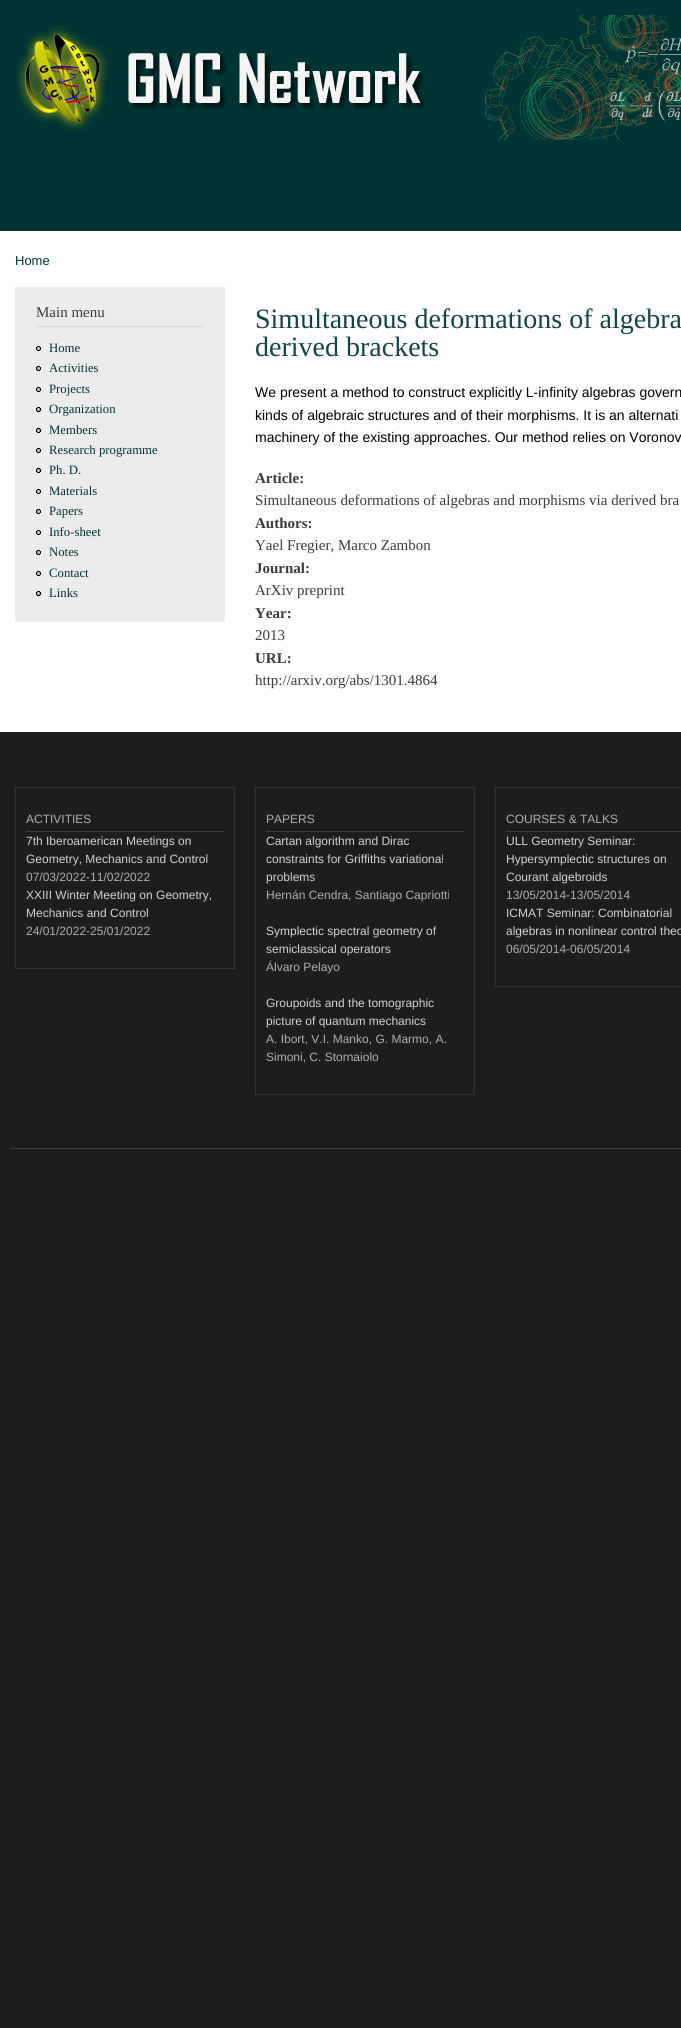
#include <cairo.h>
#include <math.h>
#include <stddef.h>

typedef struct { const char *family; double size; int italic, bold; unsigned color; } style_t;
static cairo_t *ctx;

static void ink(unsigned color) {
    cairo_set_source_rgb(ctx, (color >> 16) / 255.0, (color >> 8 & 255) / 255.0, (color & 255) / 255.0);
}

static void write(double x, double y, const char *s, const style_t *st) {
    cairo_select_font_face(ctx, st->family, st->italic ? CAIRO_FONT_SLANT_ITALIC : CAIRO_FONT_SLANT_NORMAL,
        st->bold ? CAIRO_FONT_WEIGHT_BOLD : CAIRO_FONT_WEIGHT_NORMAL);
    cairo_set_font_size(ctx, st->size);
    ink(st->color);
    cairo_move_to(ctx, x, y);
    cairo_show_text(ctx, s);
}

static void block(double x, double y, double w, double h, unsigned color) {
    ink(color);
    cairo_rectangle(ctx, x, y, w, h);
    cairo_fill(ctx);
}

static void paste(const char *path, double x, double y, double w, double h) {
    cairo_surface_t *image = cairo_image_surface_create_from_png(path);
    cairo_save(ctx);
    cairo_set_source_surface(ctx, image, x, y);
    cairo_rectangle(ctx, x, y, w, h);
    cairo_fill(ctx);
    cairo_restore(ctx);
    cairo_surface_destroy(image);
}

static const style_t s1 = {"Liberation Sans", 13, 0, 0, 0x003434};
static const style_t s2 = {"Liberation Serif", 15, 0, 0, 0x3b3b3b};
static const style_t s3 = {"Liberation Serif", 12.75, 0, 0, 0x003434};
static const style_t s4 = {"Liberation Serif", 28, 0, 0, 0x124545};
static const style_t s5 = {"Liberation Sans", 14, 0, 0, 0x000000};
static const style_t s6 = {"Liberation Serif", 15, 0, 1, 0x3b3b3b};
static const style_t s7 = {"Liberation Sans", 12, 0, 0, 0xb1b0b0};
static const style_t s8 = {"Liberation Sans", 12, 0, 0, 0xd2d2d2};

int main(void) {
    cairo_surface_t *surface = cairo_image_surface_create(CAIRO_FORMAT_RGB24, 681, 2028);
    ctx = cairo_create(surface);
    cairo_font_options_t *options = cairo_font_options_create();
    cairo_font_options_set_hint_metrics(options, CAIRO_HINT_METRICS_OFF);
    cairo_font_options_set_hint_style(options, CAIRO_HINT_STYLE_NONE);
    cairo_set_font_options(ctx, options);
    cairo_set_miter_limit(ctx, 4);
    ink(0x1f1d1c);
    cairo_paint(ctx);
    block(0, 231, 681, 501, 0xffffff);
    block(0, 0, 681, 231, 0x003434);
    paste("pic1.png", 15, 15, 666, 125);
    write(15, 265, "Home", &s1);
    block(15, 287, 210, 335, 0xececec);
    block(36, 326, 168, 1, 0xd6d6d6);
    write(36, 317, "Main menu", &s2);
    paste("pic2.png", 36, 346, 5, 5);
    write(49, 352, "Home", &s3);
    paste("pic2.png", 36, 366, 5, 5);
    write(49, 372, "Activities", &s3);
    paste("pic2.png", 36, 387, 5, 5);
    write(49, 393, "Projects", &s3);
    paste("pic2.png", 36, 407, 5, 5);
    write(49, 413, "Organization", &s3);
    paste("pic2.png", 36, 428, 5, 5);
    write(49, 434, "Members", &s3);
    paste("pic2.png", 36, 448, 5, 5);
    write(49, 454, "Research programme", &s3);
    paste("pic2.png", 36, 468, 5, 5);
    write(49, 474, "Ph. D.", &s3);
    paste("pic2.png", 36, 489, 5, 5);
    write(49, 495, "Materials", &s3);
    paste("pic2.png", 36, 509, 5, 5);
    write(49, 515, "Papers", &s3);
    paste("pic2.png", 36, 530, 5, 5);
    write(49, 536, "Info-sheet", &s3);
    paste("pic2.png", 36, 550, 5, 5);
    write(49, 556, "Notes", &s3);
    paste("pic2.png", 36, 571, 5, 5);
    write(49, 577, "Contact", &s3);
    paste("pic2.png", 36, 591, 5, 5);
    write(49, 597, "Links", &s3);
    write(255, 328, "Simultaneous deformations of algebra", &s4);
    write(255, 356, "derived brackets", &s4);
    write(255, 397, "We present a method to construct explicitly L-infinity algebras govern", &s5);
    write(255, 420, "kinds of algebraic structures and of their morphisms. It is an alternati", &s5);
    write(255, 442, "machinery of the existing approaches. Our method relies on Voronov", &s5);
    write(255, 483, "Article:", &s6);
    write(255, 505, "Simultaneous deformations of algebras and morphisms via derived bra", &s2);
    write(255, 528, "Authors:", &s6);
    write(255, 550, "Yael Fregier, Marco Zambon", &s2);
    write(255, 573, "Journal:", &s6);
    write(255, 595, "ArXiv preprint", &s2);
    write(255, 618, "Year:", &s6);
    write(255, 640, "2013", &s2);
    write(255, 663, "URL:", &s6);
    write(255, 685, "http://arxiv.org/abs/1301.4864", &s2);
    cairo_rectangle(ctx, 15.5, 787.5, 219, 181);
    ink(0x353433);
    cairo_set_line_width(ctx, 1);
    cairo_stroke(ctx);
    block(26, 831, 198, 1, 0x413f3e);
    write(26, 823, "ACTIVITIES", &s7);
    write(26, 845, "7th Iberoamerican Meetings on", &s8);
    write(26, 863, "Geometry, Mechanics and Control", &s8);
    write(26, 881, "07/03/2022-11/02/2022", &s7);
    write(26, 899, "XXIII Winter Meeting on Geometry,", &s8);
    write(26, 917, "Mechanics and Control", &s8);
    write(26, 935, "24/01/2022-25/01/2022", &s7);
    cairo_rectangle(ctx, 255.5, 787.5, 219, 307);
    ink(0x353433);
    cairo_stroke(ctx);
    block(266, 831, 198, 1, 0x413f3e);
    write(266, 823, "PAPERS", &s7);
    write(266, 845, "Cartan algorithm and Dirac", &s8);
    write(266, 863, "constraints for Griffiths variational", &s8);
    write(266, 881, "problems", &s8);
    write(266, 899, "Hernán Cendra, Santiago Capriotti", &s7);
    write(266, 935, "Symplectic spectral geometry of", &s8);
    write(266, 953, "semiclassical operators", &s8);
    write(266, 971, "Álvaro Pelayo", &s7);
    write(266, 1007, "Groupoids and the tomographic", &s8);
    write(266, 1025, "picture of quantum mechanics", &s8);
    write(266, 1043, "A. Ibort, V.I. Manko, G. Marmo, A.", &s7);
    write(266, 1061, "Simoni, C. Stornaiolo", &s7);
    cairo_rectangle(ctx, 495.5, 787.5, 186, 199);
    ink(0x353433);
    cairo_stroke(ctx);
    block(506, 831, 175, 1, 0x413f3e);
    write(506, 823, "COURSES & TALKS", &s7);
    write(506, 845, "ULL Geometry Seminar:", &s8);
    write(506, 863, "Hypersymplectic structures on", &s8);
    write(506, 881, "Courant algebroids", &s8);
    write(506, 899, "13/05/2014-13/05/2014", &s7);
    write(506, 917, "ICMAT Seminar: Combinatorial", &s8);
    write(506, 935, "algebras in nonlinear control theo", &s8);
    write(506, 953, "06/05/2014-06/05/2014", &s7);
    block(10, 1148, 671, 1, 0x413f3e);
    cairo_surface_write_to_png(surface, "screenshot.png");
    cairo_font_options_destroy(options);
    cairo_destroy(ctx);
    cairo_surface_destroy(surface);
    return 0;
}
